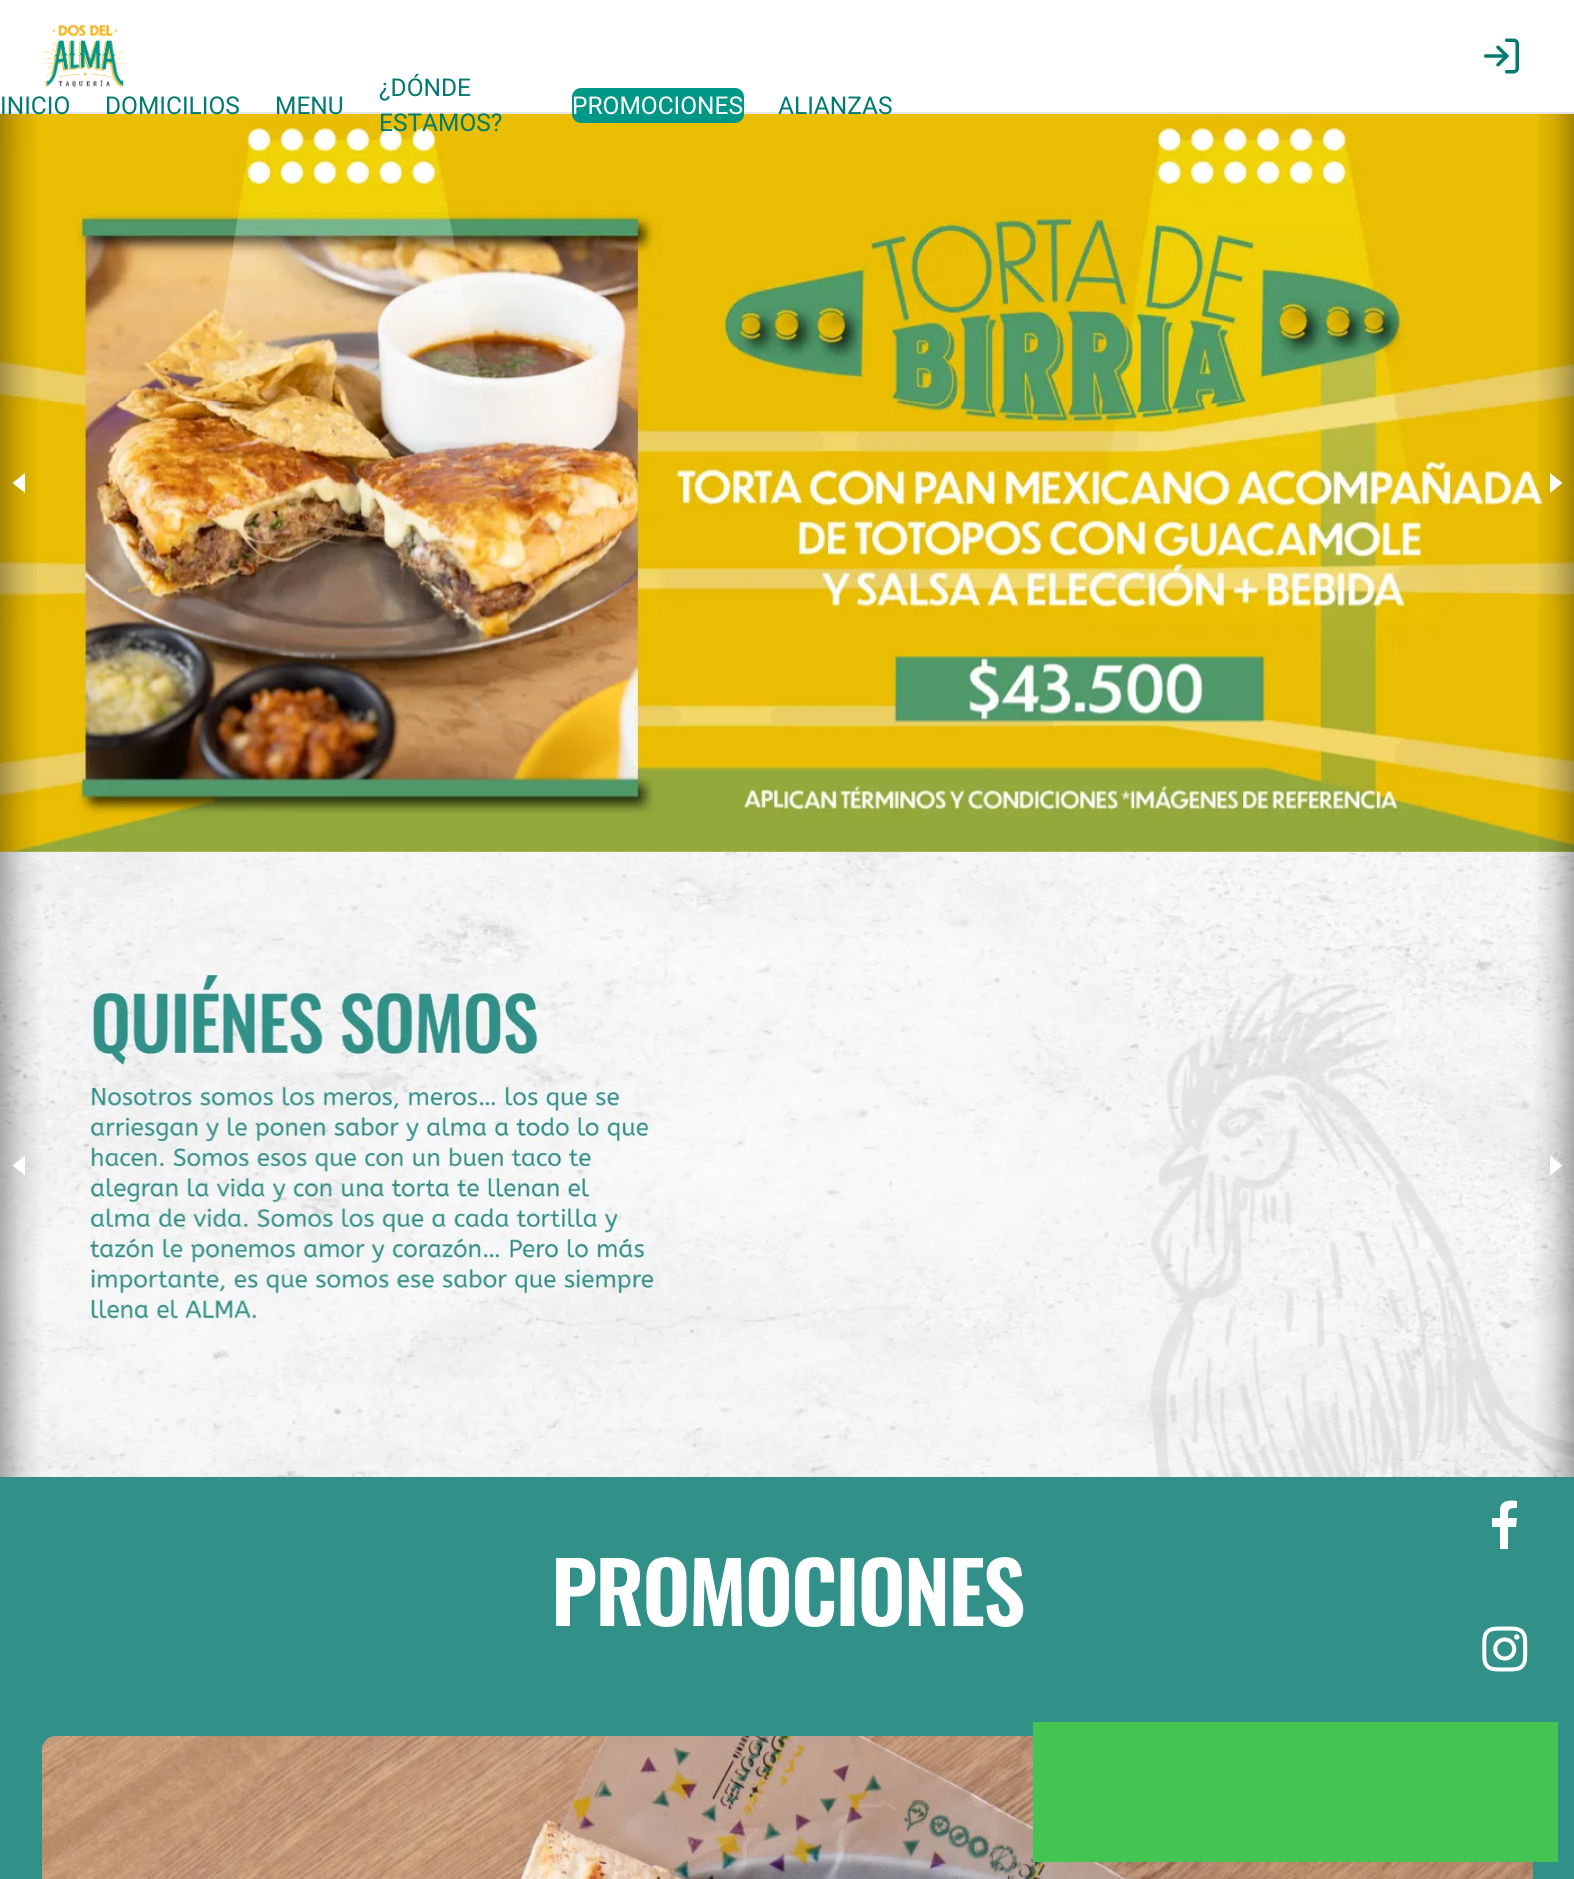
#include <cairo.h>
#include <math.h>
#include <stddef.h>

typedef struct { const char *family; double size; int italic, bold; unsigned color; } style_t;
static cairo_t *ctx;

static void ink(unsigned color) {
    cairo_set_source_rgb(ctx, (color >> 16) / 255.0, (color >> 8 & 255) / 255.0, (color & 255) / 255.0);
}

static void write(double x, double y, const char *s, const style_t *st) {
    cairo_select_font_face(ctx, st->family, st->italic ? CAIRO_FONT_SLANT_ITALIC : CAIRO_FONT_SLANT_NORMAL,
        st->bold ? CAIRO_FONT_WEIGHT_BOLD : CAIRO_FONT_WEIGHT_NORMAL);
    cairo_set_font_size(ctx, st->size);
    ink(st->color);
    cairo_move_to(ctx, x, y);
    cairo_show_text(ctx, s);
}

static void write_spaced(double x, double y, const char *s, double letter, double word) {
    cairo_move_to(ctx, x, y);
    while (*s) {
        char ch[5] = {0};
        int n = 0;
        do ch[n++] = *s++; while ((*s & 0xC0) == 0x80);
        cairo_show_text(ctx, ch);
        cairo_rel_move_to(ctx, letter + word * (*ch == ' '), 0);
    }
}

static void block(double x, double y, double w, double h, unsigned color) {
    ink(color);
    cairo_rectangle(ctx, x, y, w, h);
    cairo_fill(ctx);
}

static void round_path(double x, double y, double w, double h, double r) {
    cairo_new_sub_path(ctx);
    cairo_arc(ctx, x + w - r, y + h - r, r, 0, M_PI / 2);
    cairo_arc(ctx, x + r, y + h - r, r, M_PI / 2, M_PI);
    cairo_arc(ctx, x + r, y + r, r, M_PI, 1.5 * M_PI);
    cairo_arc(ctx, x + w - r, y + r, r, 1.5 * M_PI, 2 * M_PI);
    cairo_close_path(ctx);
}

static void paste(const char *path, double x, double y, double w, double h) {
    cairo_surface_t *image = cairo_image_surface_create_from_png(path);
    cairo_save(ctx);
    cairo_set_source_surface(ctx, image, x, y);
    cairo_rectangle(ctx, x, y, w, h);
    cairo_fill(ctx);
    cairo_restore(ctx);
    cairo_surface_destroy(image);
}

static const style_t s1 = {"Roboto", 24.5, 0, 0, 0x027a6d};
static const style_t s2 = {"Roboto", 24.5, 0, 0, 0xffffff};

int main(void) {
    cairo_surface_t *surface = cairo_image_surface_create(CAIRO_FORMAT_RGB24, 1574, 1879);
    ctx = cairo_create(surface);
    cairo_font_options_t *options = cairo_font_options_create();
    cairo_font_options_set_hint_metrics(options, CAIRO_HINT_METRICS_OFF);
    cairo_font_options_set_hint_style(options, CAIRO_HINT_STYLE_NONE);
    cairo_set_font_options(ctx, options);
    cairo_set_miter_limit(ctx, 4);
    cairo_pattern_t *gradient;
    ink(0xffffff);
    cairo_paint(ctx);
    block(0, 112, 1574, 2, 0xe5e5e5);
    paste("pic1.png", 1484, 38, 35, 36);
    paste("pic2.png", 42, 24, 84, 64);
    paste("pic3.png", 0, 114, 1574, 738);
    gradient = cairo_pattern_create_linear(0, 483, 42, 483);
    cairo_pattern_add_color_stop_rgba(gradient, 0, 0, 0, 0, 0.3);
    cairo_pattern_add_color_stop_rgba(gradient, 0.5, 0, 0, 0, 0.1);
    cairo_pattern_add_color_stop_rgba(gradient, 1, 0, 0, 0, 0);
    cairo_set_source(ctx, gradient);
    cairo_pattern_destroy(gradient);
    cairo_rectangle(ctx, 0, 114, 37, 738);
    cairo_fill(ctx);
    write(0, 114, "INICIO", &s1);
    write(105, 114, "DOMICILIOS", &s1);
    write(275, 114, "MENU", &s1);
    write(379, 96, "¿DÓNDE", &s1);
    write(379, 131, "ESTAMOS?", &s1);
    ink(0x009787);
    round_path(572, 88, 172, 35, 9);
    cairo_fill(ctx);
    write(572, 114, "PROMOCIONES", &s2);
    write(778, 114, "ALIANZAS", &s1);
    ink(0xffffff);
    cairo_new_path(ctx);
    cairo_move_to(ctx, 25, 473);
    cairo_line_to(ctx, 25, 493);
    cairo_line_to(ctx, 12.5, 483);
    cairo_close_path(ctx);
    cairo_fill(ctx);
    gradient = cairo_pattern_create_linear(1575, 483, 1533, 483);
    cairo_pattern_add_color_stop_rgba(gradient, 0, 0, 0, 0, 0.3);
    cairo_pattern_add_color_stop_rgba(gradient, 0.5, 0, 0, 0, 0.1);
    cairo_pattern_add_color_stop_rgba(gradient, 1, 0, 0, 0, 0);
    cairo_set_source(ctx, gradient);
    cairo_pattern_destroy(gradient);
    cairo_rectangle(ctx, 1538, 114, 36, 738);
    cairo_fill(ctx);
    ink(0xffffff);
    cairo_new_path(ctx);
    cairo_move_to(ctx, 1550, 493);
    cairo_line_to(ctx, 1550, 473);
    cairo_line_to(ctx, 1562.5, 483);
    cairo_close_path(ctx);
    cairo_fill(ctx);
    paste("pic4.png", 0, 852, 1574, 625);
    cairo_new_path(ctx);
    cairo_move_to(ctx, 25, 1155.5);
    cairo_line_to(ctx, 25, 1175.5);
    cairo_line_to(ctx, 12.5, 1165.5);
    cairo_close_path(ctx);
    cairo_fill(ctx);
    cairo_new_path(ctx);
    cairo_move_to(ctx, 1550, 1175.5);
    cairo_line_to(ctx, 1550, 1155.5);
    cairo_line_to(ctx, 1562.5, 1165.5);
    cairo_close_path(ctx);
    cairo_fill(ctx);
    block(0, 1477, 1574, 402, 0x319189);
    cairo_select_font_face(ctx, "Oswald SemiBold", CAIRO_FONT_SLANT_NORMAL, CAIRO_FONT_WEIGHT_NORMAL);
    cairo_set_font_size(ctx, 84);
    ink(0xffffff);
    write_spaced(551, 1626, "PROMOCIONES", -2.1, 0);
    paste("pic5.png", 42, 1736, 1491, 143);
    cairo_new_path(ctx);
    cairo_move_to(ctx, 1517, 1501);
    cairo_line_to(ctx, 1517, 1508);
    cairo_curve_to(ctx, 1508, 1508, 1508, 1509, 1508, 1518);
    cairo_line_to(ctx, 1517, 1518);
    cairo_line_to(ctx, 1516, 1527);
    cairo_line_to(ctx, 1508, 1527);
    cairo_line_to(ctx, 1508, 1549);
    cairo_line_to(ctx, 1500, 1549);
    cairo_line_to(ctx, 1500, 1527);
    cairo_line_to(ctx, 1492, 1527);
    cairo_line_to(ctx, 1492, 1518);
    cairo_line_to(ctx, 1500, 1518);
    cairo_line_to(ctx, 1500, 1509);
    cairo_curve_to(ctx, 1501, 1500, 1510, 1500, 1517, 1501);
    cairo_close_path(ctx);
    cairo_fill(ctx);
    paste("pic6.png", 1482, 1626, 46, 46);
    block(1033, 1722, 525, 140, 0x43c453);
    cairo_surface_write_to_png(surface, "screenshot.png");
    cairo_font_options_destroy(options);
    cairo_destroy(ctx);
    cairo_surface_destroy(surface);
    return 0;
}
